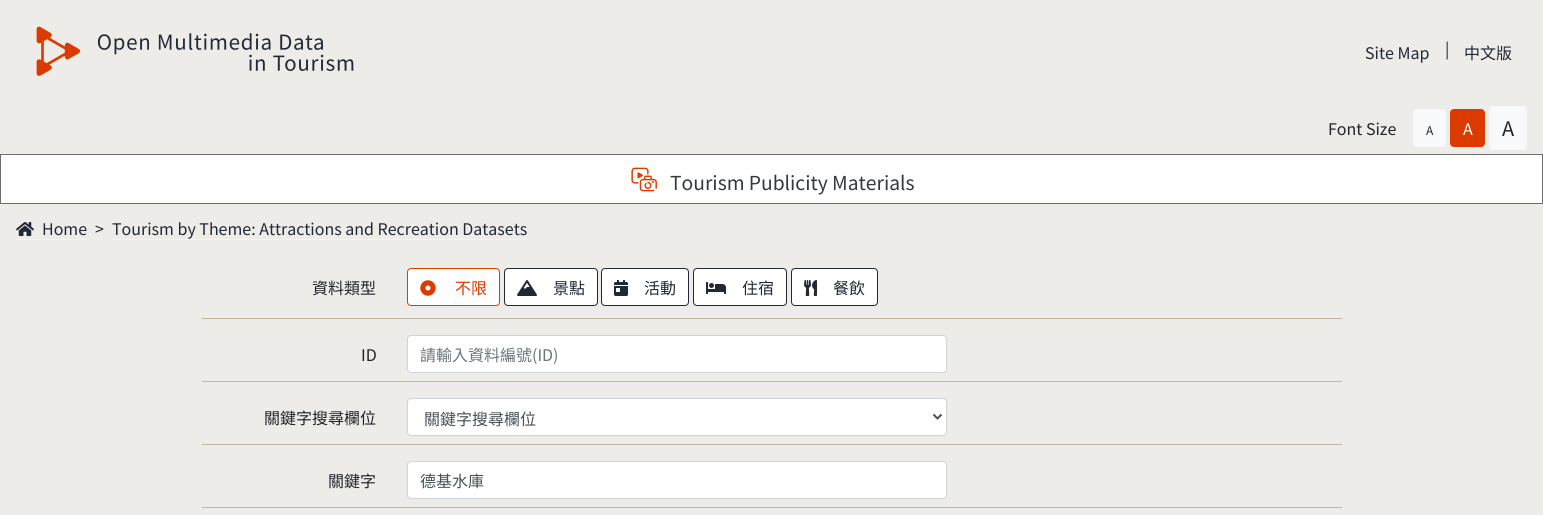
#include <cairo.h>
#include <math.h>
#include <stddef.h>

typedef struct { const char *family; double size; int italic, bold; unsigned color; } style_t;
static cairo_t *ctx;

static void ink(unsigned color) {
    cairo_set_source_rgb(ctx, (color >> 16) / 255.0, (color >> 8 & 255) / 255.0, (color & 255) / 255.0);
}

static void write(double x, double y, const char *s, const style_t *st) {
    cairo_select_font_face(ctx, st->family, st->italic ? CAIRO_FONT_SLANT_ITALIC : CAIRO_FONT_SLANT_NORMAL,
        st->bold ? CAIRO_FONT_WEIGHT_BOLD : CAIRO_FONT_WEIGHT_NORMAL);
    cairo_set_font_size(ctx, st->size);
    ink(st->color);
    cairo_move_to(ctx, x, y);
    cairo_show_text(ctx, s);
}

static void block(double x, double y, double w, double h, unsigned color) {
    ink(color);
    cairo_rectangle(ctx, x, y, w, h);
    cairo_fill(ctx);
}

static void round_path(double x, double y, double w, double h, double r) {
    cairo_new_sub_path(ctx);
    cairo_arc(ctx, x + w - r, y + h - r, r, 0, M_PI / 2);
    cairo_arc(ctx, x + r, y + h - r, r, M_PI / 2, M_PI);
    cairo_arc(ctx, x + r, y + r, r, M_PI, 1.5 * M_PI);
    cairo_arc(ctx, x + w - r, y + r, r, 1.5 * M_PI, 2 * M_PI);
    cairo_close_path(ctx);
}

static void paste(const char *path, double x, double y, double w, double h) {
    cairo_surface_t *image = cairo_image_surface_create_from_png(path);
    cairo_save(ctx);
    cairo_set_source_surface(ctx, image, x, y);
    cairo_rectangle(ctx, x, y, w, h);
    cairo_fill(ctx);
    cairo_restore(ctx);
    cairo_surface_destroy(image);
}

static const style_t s1 = {"Noto Sans TC", 16, 0, 0, 0x212836};
static const style_t s2 = {"Noto Sans TC", 16, 0, 0, 0x212529};
static const style_t s3 = {"Noto Sans TC", 12, 0, 0, 0x212529};
static const style_t s4 = {"Noto Sans TC", 16, 0, 0, 0xffffff};
static const style_t s5 = {"Noto Sans TC", 20, 0, 0, 0x212529};
static const style_t s6 = {"Noto Sans TC", 19.25, 0, 0, 0x343a40};
static const style_t s7 = {"Noto Sans TC", 16, 0, 0, 0xdb3b00};
static const style_t s8 = {"Noto Sans TC", 16, 0, 0, 0x6c757d};
static const style_t s9 = {"Noto Sans TC", 16, 0, 0, 0x495057};

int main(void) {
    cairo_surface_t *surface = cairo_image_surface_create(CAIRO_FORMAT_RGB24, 1543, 515);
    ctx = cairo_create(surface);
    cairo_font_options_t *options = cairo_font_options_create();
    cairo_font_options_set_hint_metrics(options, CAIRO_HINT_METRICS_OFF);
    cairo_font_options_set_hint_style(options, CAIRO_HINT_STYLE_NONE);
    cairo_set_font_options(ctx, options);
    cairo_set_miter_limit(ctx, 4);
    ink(0xeeece8);
    cairo_paint(ctx);
    paste("pic1.png", 36, 26, 318, 50);
    write(1365, 59, "Site Map", &s1);
    write(1445, 55, "|", &s2);
    write(1464, 59, "中文版", &s1);
    write(1328, 135, "Font Size", &s2);
    ink(0xf8f9fa);
    round_path(1413.5, 109.5, 32, 37, 3.5);
    cairo_fill_preserve(ctx);
    cairo_set_line_width(ctx, 1);
    cairo_stroke(ctx);
    write(1426, 135, "A", &s3);
    ink(0xdb3b00);
    round_path(1450.5, 109.5, 34, 37, 3.5);
    cairo_fill_preserve(ctx);
    cairo_stroke(ctx);
    write(1463, 135, "A", &s4);
    ink(0xf8f9fa);
    round_path(1489.5, 106.5, 37, 43, 3.5);
    cairo_fill_preserve(ctx);
    cairo_stroke(ctx);
    write(1502, 136, "A", &s5);
    ink(0xffffff);
    cairo_rectangle(ctx, 0.5, 154.5, 1542, 49);
    cairo_fill_preserve(ctx);
    ink(0x6d6d6d);
    cairo_stroke(ctx);
    paste("pic2.png", 631, 167, 26, 25);
    write(670, 190, "Tourism Publicity Materials", &s6);
    paste("pic3.png", 16, 222, 18, 14);
    write(42, 235, "Home", &s1);
    block(16, 239, 71, 1, 0xfcf1ed);
    write(95, 235, ">", &s1);
    write(112, 235, "Tourism by Theme: Attractions and Recreation Datasets", &s1);
    block(112, 239, 415, 1, 0xfcf1ed);
    block(202, 318, 1140, 1, 0xbfb5a3);
    write(312, 294, "資料類型", &s2);
    ink(0xffffff);
    round_path(407.5, 268.5, 92, 37, 3.5);
    cairo_fill_preserve(ctx);
    ink(0xdb3b00);
    cairo_stroke(ctx);
    paste("pic4.png", 420, 280, 16, 16);
    write(455, 294, "不限", &s7);
    ink(0xffffff);
    round_path(504.5, 268.5, 93, 37, 3.5);
    cairo_fill_preserve(ctx);
    ink(0x212836);
    cairo_stroke(ctx);
    paste("pic5.png", 517, 280, 20, 16);
    write(553, 294, "景點", &s1);
    ink(0xffffff);
    round_path(601.5, 268.5, 87, 37, 3.5);
    cairo_fill_preserve(ctx);
    ink(0x212836);
    cairo_stroke(ctx);
    paste("pic6.png", 614, 280, 14, 16);
    write(644, 294, "活動", &s1);
    ink(0xffffff);
    round_path(693.5, 268.5, 93, 37, 3.5);
    cairo_fill_preserve(ctx);
    ink(0x212836);
    cairo_stroke(ctx);
    paste("pic7.png", 706, 282, 20, 12);
    write(742, 294, "住宿", &s1);
    ink(0xffffff);
    round_path(791.5, 268.5, 86, 37, 3.5);
    cairo_fill_preserve(ctx);
    ink(0x212836);
    cairo_stroke(ctx);
    paste("pic8.png", 804, 280, 13, 16);
    write(833, 294, "餐飲", &s1);
    block(202, 381, 1140, 1, 0xbfb5a3);
    write(361, 361, "ID", &s2);
    ink(0xffffff);
    round_path(407.5, 335.5, 539, 37, 3.5);
    cairo_fill_preserve(ctx);
    ink(0xced4da);
    cairo_stroke(ctx);
    write(420, 361, "請輸入資料編號(ID)", &s8);
    block(202, 444, 1140, 1, 0xbfb5a3);
    write(264, 424, "關鍵字搜尋欄位", &s2);
    ink(0xffffff);
    round_path(407.5, 398.5, 539, 37, 3.5);
    cairo_fill_preserve(ctx);
    ink(0xced4da);
    cairo_stroke(ctx);
    cairo_new_path(ctx);
    cairo_move_to(ctx, 933.5, 414.5);
    cairo_line_to(ctx, 937.5, 418.5);
    cairo_line_to(ctx, 941.5, 414.5);
    ink(0x495057);
    cairo_set_line_width(ctx, 2);
    cairo_stroke(ctx);
    write(424, 425, "關鍵字搜尋欄位", &s9);
    block(202, 507, 1140, 1, 0xbfb5a3);
    write(328, 487, "關鍵字", &s2);
    ink(0xffffff);
    round_path(407.5, 461.5, 539, 37, 3.5);
    cairo_fill_preserve(ctx);
    ink(0xced4da);
    cairo_set_line_width(ctx, 1);
    cairo_stroke(ctx);
    write(420, 487, "德基水庫", &s9);
    cairo_surface_write_to_png(surface, "screenshot.png");
    cairo_font_options_destroy(options);
    cairo_destroy(ctx);
    cairo_surface_destroy(surface);
    return 0;
}
